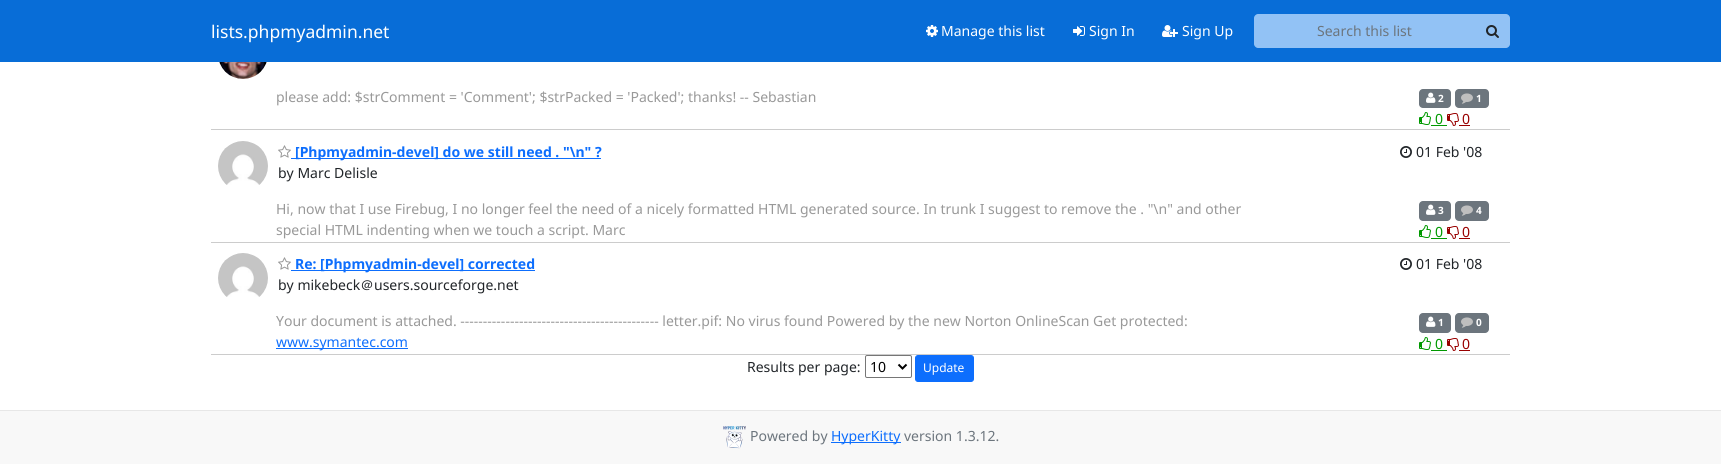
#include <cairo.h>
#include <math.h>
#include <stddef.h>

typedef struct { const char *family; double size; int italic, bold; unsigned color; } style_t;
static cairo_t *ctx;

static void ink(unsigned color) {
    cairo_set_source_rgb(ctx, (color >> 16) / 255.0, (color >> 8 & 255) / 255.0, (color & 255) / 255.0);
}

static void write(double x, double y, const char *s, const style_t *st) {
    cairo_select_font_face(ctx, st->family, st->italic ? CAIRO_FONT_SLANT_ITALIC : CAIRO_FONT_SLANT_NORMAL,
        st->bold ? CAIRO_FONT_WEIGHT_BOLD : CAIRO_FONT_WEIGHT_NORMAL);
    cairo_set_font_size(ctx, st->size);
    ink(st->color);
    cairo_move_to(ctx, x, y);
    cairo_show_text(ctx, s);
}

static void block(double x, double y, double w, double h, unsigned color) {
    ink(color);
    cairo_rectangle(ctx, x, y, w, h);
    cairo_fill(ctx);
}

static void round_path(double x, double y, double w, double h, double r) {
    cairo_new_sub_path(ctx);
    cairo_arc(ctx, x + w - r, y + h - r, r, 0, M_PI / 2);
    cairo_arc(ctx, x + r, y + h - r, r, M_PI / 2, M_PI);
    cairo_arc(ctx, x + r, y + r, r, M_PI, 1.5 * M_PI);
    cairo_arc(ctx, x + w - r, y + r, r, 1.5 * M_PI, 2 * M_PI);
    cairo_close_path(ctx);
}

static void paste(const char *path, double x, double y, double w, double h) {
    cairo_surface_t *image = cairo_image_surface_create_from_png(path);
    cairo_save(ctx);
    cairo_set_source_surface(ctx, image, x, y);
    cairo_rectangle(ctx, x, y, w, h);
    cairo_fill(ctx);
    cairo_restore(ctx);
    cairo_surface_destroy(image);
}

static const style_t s1 = {"Noto Sans", 17.5, 0, 0, 0xffffff};
static const style_t s2 = {"Noto Sans", 14, 0, 0, 0xffffff};
static const style_t s3 = {"Noto Sans", 14, 0, 0, 0x6c757d};
static const style_t s4 = {"Noto Sans", 14, 0, 0, 0x999999};
static const style_t s5 = {"Noto Sans", 10, 0, 1, 0xffffff};
static const style_t s6 = {"Noto Sans", 14, 0, 0, 0x009900};
static const style_t s7 = {"Noto Sans", 14, 0, 0, 0x990000};
static const style_t s8 = {"Noto Sans", 14, 0, 1, 0x0d6efd};
static const style_t s9 = {"Noto Sans", 14, 0, 0, 0x212529};
static const style_t s10 = {"WenQuanYi Zen Hei Medium", 14, 0, 0, 0x212529};
static const style_t s11 = {"Noto Sans", 14, 0, 0, 0x0d6efd};
static const style_t s12 = {"Noto Sans", 14, 0, 0, 0x000000};
static const style_t s13 = {"Noto Sans", 12, 0, 0, 0xffffff};

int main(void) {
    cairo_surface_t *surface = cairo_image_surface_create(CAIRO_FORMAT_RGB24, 1721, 464);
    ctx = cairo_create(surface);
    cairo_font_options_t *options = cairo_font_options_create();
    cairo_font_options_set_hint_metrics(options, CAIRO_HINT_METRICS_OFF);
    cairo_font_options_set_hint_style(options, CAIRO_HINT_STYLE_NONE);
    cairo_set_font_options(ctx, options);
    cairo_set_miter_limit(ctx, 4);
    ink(0xffffff);
    cairo_paint(ctx);
    block(0, 0, 1721, 62, 0x086dd7);
    write(211, 38, "lists.phpmyadmin.net", &s1);
    paste("pic1.png", 926, 25, 12, 12);
    write(941, 36, "Manage this list", &s2);
    paste("pic2.png", 1073, 26, 12, 10);
    write(1089, 36, "Sign In", &s2);
    paste("pic3.png", 1162, 25, 16, 12);
    write(1182, 36, "Sign Up", &s2);
    ink(0x92c2f5);
    cairo_new_path(ctx);
    cairo_move_to(ctx, 1258, 14);
    cairo_line_to(ctx, 1475, 14);
    cairo_line_to(ctx, 1475, 48);
    cairo_line_to(ctx, 1258, 48);
    cairo_curve_to(ctx, 1256, 48, 1254, 46, 1254, 44);
    cairo_line_to(ctx, 1254, 18);
    cairo_curve_to(ctx, 1254, 16, 1256, 14, 1258, 14);
    cairo_close_path(ctx);
    cairo_fill(ctx);
    write(1317, 36, "Search this list", &s3);
    ink(0x92c2f5);
    cairo_new_path(ctx);
    cairo_move_to(ctx, 1474, 14);
    cairo_line_to(ctx, 1506, 14);
    cairo_curve_to(ctx, 1508, 14, 1510, 16, 1510, 18);
    cairo_line_to(ctx, 1510, 44);
    cairo_curve_to(ctx, 1510, 46, 1508, 48, 1506, 48);
    cairo_line_to(ctx, 1474, 48);
    cairo_close_path(ctx);
    cairo_fill(ctx);
    paste("pic4.png", 1486, 25, 13, 13);
    block(211, 129, 1299, 1, 0xcccccc);
    paste("pic5.png", 219, 62, 48, 17);
    write(276, 102, "please add: $strComment = 'Comment'; $strPacked = 'Packed'; thanks! -- Sebastian", &s4);
    ink(0x6c757d);
    round_path(1419, 89, 32, 19, 4);
    cairo_fill(ctx);
    paste("pic6.png", 1426, 92, 10, 11);
    write(1438, 102, "2", &s5);
    ink(0x6c757d);
    round_path(1455, 89, 34, 19, 4);
    cairo_fill(ctx);
    paste("pic7.png", 1461, 93, 12, 11);
    write(1476, 102, "1", &s5);
    paste("pic8.png", 1419, 112, 12, 13);
    write(1435, 124, "0", &s6);
    block(1431, 125, 16, 1, 0x009900);
    paste("pic9.png", 1447, 113, 12, 13);
    write(1462, 124, "0", &s7);
    block(1459, 125, 11, 1, 0x990000);
    block(211, 242, 1299, 1, 0xcccccc);
    paste("pic10.png", 218, 141, 50, 44);
    paste("pic11.png", 278, 145, 13, 13);
    block(291, 158, 310, 1, 0x0d6efd);
    write(295, 157, "[Phpmyadmin-devel] do we still need . \"\\n\" ?", &s8);
    write(278, 178, "by Marc Delisle", &s9);
    paste("pic12.png", 1400, 146, 12, 12);
    write(1416, 157, "01 Feb '08", &s9);
    write(276, 214, "Hi, now that I use Firebug, I no longer feel the need of a nicely formatted HTML generated source. In trunk I suggest to remove the . \"\\n\" and other", &s4);
    write(276, 235, "special HTML indenting when we touch a script. Marc", &s4);
    ink(0x6c757d);
    round_path(1419, 201, 32, 20, 4);
    cairo_fill(ctx);
    paste("pic6.png", 1426, 204, 10, 11);
    write(1438, 214, "3", &s5);
    ink(0x6c757d);
    round_path(1455, 201, 34, 20, 4);
    cairo_fill(ctx);
    paste("pic7.png", 1461, 205, 12, 11);
    write(1476, 214, "4", &s5);
    paste("pic8.png", 1419, 225, 12, 13);
    write(1435, 237, "0", &s6);
    block(1431, 238, 16, 1, 0x009900);
    paste("pic9.png", 1447, 226, 12, 13);
    write(1462, 237, "0", &s7);
    block(1459, 238, 11, 1, 0x990000);
    block(211, 354, 1299, 1, 0xcccccc);
    paste("pic10.png", 218, 253, 50, 44);
    paste("pic11.png", 278, 257, 13, 13);
    block(291, 270, 244, 1, 0x0d6efd);
    write(295, 269, "Re: [Phpmyadmin-devel] corrected", &s8);
    write(278, 290, "by mikebeck", &s9);
    write(360, 290, "＠", &s10);
    write(374, 290, "users.sourceforge.net", &s9);
    paste("pic12.png", 1400, 258, 12, 12);
    write(1416, 269, "01 Feb '08", &s9);
    write(276, 326, "Your document is attached. -------------------------------------------- letter.pif: No virus found Powered by the new Norton OnlineScan Get protected:", &s4);
    block(276, 348, 132, 1, 0x0d6efd);
    write(276, 347, "www.symantec.com", &s11);
    ink(0x6c757d);
    round_path(1419, 313, 32, 20, 4);
    cairo_fill(ctx);
    paste("pic6.png", 1426, 316, 10, 11);
    write(1438, 326, "1", &s5);
    ink(0x6c757d);
    round_path(1455, 313, 34, 20, 4);
    cairo_fill(ctx);
    paste("pic7.png", 1461, 317, 12, 11);
    write(1476, 326, "0", &s5);
    paste("pic8.png", 1419, 337, 12, 13);
    write(1435, 349, "0", &s6);
    block(1431, 350, 16, 1, 0x009900);
    paste("pic9.png", 1447, 338, 12, 13);
    write(1462, 349, "0", &s7);
    block(1459, 350, 11, 1, 0x990000);
    write(747, 372, "Results per page:", &s9);
    round_path(865.5, 355.5, 46, 22, 1.5);
    ink(0x767676);
    cairo_set_line_width(ctx, 1);
    cairo_stroke(ctx);
    cairo_new_path(ctx);
    cairo_move_to(ctx, 898.5, 364.5);
    cairo_line_to(ctx, 902.5, 368.5);
    cairo_line_to(ctx, 906.5, 364.5);
    ink(0x000000);
    cairo_set_line_width(ctx, 2);
    cairo_stroke(ctx);
    write(870, 372, "10", &s12);
    ink(0x0d6efd);
    round_path(915.5, 355.5, 58, 26, 2.5);
    cairo_fill_preserve(ctx);
    cairo_set_line_width(ctx, 1);
    cairo_stroke(ctx);
    write(923, 372, "Update", &s13);
    block(0, 411, 1721, 53, 0xf8f8f8);
    block(0, 410, 1721, 1, 0xe7e7e7);
    paste("pic13.png", 723, 426, 23, 23);
    write(750, 441, "Powered by", &s3);
    block(831, 442, 70, 1, 0x0d6efd);
    write(831, 441, "HyperKitty", &s11);
    write(904, 441, "version 1.3.12.", &s3);
    cairo_surface_write_to_png(surface, "screenshot.png");
    cairo_font_options_destroy(options);
    cairo_destroy(ctx);
    cairo_surface_destroy(surface);
    return 0;
}
